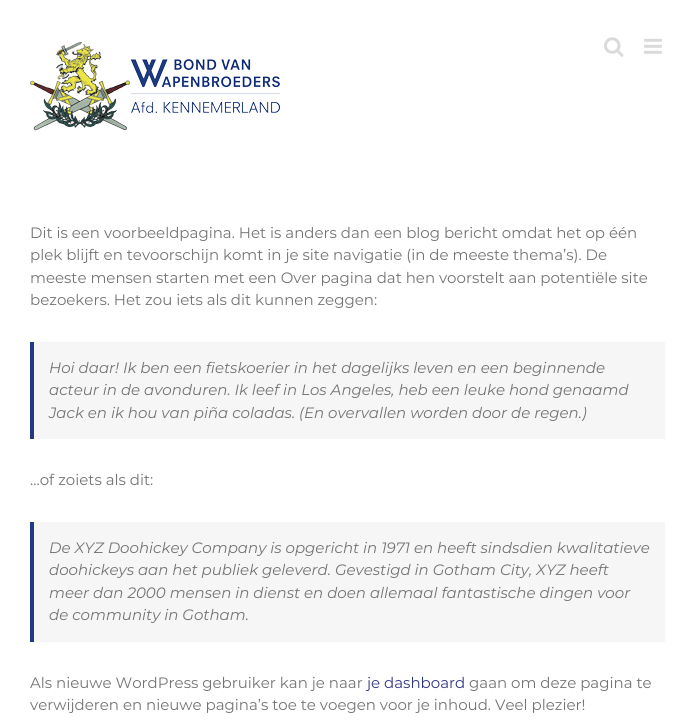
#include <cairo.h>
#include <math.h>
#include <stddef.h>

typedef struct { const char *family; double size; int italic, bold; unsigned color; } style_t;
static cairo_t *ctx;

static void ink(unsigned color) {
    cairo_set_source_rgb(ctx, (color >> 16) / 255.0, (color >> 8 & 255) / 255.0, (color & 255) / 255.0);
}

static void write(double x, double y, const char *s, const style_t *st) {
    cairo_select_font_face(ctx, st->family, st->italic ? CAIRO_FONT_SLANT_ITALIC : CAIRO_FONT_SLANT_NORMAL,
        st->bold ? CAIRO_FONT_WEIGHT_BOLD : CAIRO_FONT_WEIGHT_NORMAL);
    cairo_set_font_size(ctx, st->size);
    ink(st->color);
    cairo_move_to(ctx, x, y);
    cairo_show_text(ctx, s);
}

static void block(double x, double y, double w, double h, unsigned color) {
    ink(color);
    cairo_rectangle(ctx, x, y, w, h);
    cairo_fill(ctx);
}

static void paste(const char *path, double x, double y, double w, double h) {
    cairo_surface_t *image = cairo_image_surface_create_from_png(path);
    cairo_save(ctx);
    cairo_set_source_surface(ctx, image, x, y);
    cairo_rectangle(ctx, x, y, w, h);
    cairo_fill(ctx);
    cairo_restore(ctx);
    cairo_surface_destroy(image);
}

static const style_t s1 = {"Montserrat", 15, 0, 0, 0x747474};
static const style_t s2 = {"Montserrat", 15, 1, 0, 0x747474};
static const style_t s3 = {"Montserrat", 15, 0, 0, 0x303880};

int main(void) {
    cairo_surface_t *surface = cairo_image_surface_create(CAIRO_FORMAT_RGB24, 695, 724);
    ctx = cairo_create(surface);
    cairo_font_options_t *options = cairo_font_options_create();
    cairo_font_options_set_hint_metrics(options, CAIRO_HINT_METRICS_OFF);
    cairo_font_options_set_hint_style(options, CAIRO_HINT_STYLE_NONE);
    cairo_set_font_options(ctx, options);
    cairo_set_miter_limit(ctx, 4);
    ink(0xffffff);
    cairo_paint(ctx);
    paste("pic1.png", 30, 42, 250, 89);
    paste("pic2.png", 604, 37, 20, 20);
    paste("pic3.png", 644, 38, 18, 16);
    write(30, 238, "Dit is een voorbeeldpagina. Het is anders dan een blog bericht omdat het op één", &s1);
    write(30, 260, "plek blijft en tevoorschijn komt in je site navigatie (in de meeste thema’s). De", &s1);
    write(30, 283, "meeste mensen starten met een Over pagina dat hen voorstelt aan potentiële site", &s1);
    write(30, 305, "bezoekers. Het zou iets als dit kunnen zeggen:", &s1);
    block(34, 342, 631, 97, 0xf6f6f6);
    block(30, 342, 4, 97, 0x203b7f);
    write(49, 373, "Hoi daar! Ik ben een fietskoerier in het dagelijks leven en een beginnende", &s2);
    write(49, 395, "acteur in de avonduren. Ik leef in Los Angeles, heb een leuke hond genaamd", &s2);
    write(49, 418, "Jack en ik hou van piña coladas. (En overvallen worden door de regen.)", &s2);
    write(30, 485, "…of zoiets als dit:", &s1);
    block(34, 522, 631, 120, 0xf6f6f6);
    block(30, 522, 4, 120, 0x203b7f);
    write(49, 553, "De XYZ Doohickey Company is opgericht in 1971 en heeft sindsdien kwalitatieve", &s2);
    write(49, 575, "doohickeys aan het publiek geleverd. Gevestigd in Gotham City, XYZ heeft", &s2);
    write(49, 598, "meer dan 2000 mensen in dienst en doen allemaal fantastische dingen voor", &s2);
    write(49, 620, "de community in Gotham.", &s2);
    write(30, 688, "Als nieuwe WordPress gebruiker kan je naar", &s1);
    write(367, 688, "je dashboard", &s3);
    write(469, 688, "gaan om deze pagina te", &s1);
    write(30, 710, "verwijderen en nieuwe pagina’s toe te voegen voor je inhoud. Veel plezier!", &s1);
    cairo_surface_write_to_png(surface, "screenshot.png");
    cairo_font_options_destroy(options);
    cairo_destroy(ctx);
    cairo_surface_destroy(surface);
    return 0;
}
